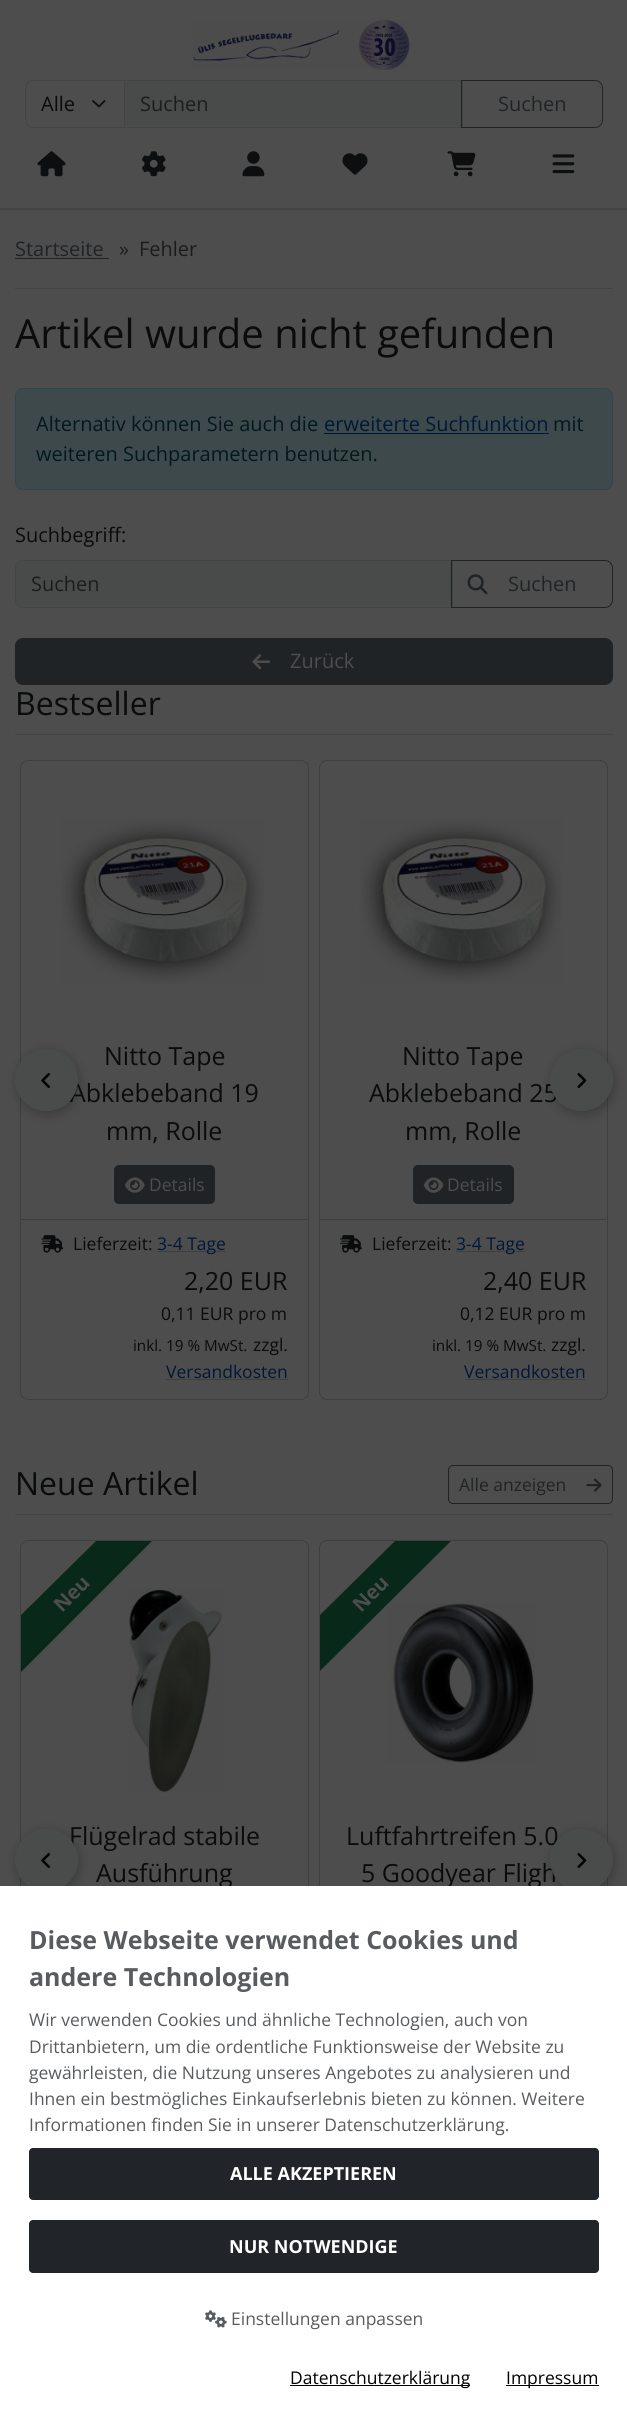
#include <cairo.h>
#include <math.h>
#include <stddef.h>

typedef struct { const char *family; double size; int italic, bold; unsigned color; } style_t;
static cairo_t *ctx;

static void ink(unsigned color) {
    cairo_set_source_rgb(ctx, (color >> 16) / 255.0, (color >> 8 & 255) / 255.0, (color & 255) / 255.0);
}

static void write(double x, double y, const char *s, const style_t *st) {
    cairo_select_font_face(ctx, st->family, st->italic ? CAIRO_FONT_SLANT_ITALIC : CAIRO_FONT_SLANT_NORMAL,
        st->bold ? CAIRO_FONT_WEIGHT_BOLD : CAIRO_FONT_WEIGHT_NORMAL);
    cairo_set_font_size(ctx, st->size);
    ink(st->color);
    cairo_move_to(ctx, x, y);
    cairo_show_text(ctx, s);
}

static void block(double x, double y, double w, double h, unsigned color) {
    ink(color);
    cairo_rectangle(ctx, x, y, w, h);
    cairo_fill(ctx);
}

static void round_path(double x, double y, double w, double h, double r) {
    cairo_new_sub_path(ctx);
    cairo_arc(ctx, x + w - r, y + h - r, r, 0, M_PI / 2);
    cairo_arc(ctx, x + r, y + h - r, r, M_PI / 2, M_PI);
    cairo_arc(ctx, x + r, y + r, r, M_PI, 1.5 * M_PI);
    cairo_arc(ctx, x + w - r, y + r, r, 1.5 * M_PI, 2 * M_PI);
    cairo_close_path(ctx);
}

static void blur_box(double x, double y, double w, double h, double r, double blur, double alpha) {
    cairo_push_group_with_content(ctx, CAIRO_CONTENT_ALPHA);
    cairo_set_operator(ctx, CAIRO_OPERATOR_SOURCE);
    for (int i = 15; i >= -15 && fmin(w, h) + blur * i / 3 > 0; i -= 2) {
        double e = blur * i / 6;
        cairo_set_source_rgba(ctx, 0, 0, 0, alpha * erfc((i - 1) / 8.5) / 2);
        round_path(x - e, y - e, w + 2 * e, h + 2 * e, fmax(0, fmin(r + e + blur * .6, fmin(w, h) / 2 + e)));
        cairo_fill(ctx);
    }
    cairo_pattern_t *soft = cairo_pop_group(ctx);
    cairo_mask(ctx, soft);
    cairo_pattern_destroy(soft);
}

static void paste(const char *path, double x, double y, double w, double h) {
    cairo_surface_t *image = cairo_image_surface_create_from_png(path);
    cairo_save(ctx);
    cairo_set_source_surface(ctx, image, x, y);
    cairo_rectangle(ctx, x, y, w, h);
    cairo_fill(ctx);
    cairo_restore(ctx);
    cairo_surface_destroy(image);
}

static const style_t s1 = {"Open Sans", 20, 0, 0, 0x0a0b0c};
static const style_t s2 = {"Open Sans", 20, 0, 0, 0x1b1c1d};
static const style_t s3 = {"Open Sans", 20, 0, 0, 0x202326};
static const style_t s4 = {"Open Sans", 40, 0, 0, 0x0a0b0c};
static const style_t s5 = {"Open Sans", 20, 0, 0, 0x02181d};
static const style_t s6 = {"Open Sans", 20, 0, 0, 0x011737};
static const style_t s7 = {"Open Sans", 20, 0, 0, 0x4d4d4d};
static const style_t s8 = {"Open Sans", 32, 0, 0, 0x0a0b0c};
static const style_t s9 = {"Open Sans", 25, 0, 0, 0x0a0b0c};
static const style_t s10 = {"Open Sans", 17.5, 0, 0, 0x4d4d4d};
static const style_t s11 = {"Open Sans", 17.5, 0, 0, 0x0a0b0c};
static const style_t s12 = {"Open Sans", 17.5, 0, 0, 0x011737};
static const style_t s13 = {"Open Sans", 15.25, 0, 0, 0x0a0b0c};
static const style_t s14 = {"Open Sans", 17.5, 0, 0, 0x202326};
static const style_t s15 = {"Open Sans", 20, 0, 1, 0x4d4d4d};
static const style_t s16 = {"Open Sans", 25, 0, 1, 0x595c5f};
static const style_t s17 = {"Open Sans", 17.5, 0, 0, 0x595c5f};
static const style_t s18 = {"Open Sans", 18, 0, 1, 0xffffff};
static const style_t s19 = {"Open Sans", 17.5, 0, 0, 0x000000};

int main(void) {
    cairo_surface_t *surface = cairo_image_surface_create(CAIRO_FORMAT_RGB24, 627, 2424);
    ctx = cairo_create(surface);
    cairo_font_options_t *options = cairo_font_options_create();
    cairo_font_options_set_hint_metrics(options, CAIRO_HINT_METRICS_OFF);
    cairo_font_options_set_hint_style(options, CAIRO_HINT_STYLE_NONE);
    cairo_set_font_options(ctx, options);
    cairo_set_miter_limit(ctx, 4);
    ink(0x4d4d4d);
    cairo_paint(ctx);
    paste("pic1.png", 193, 20, 217, 50);
    cairo_new_path(ctx);
    cairo_move_to(ctx, 93, 101);
    cairo_line_to(ctx, 99, 106.5);
    cairo_line_to(ctx, 104.5, 101);
    ink(0x101113);
    cairo_set_line_width(ctx, 1.9);
    cairo_set_line_cap(ctx, CAIRO_LINE_CAP_ROUND);
    cairo_set_line_join(ctx, CAIRO_LINE_JOIN_ROUND);
    cairo_stroke(ctx);
    cairo_new_path(ctx);
    cairo_move_to(ctx, 33, 80.5);
    cairo_line_to(ctx, 124.5, 80.5);
    cairo_line_to(ctx, 124.5, 127.5);
    cairo_line_to(ctx, 33, 127.5);
    cairo_curve_to(ctx, 29, 127.5, 25.5, 124, 25.5, 120);
    cairo_line_to(ctx, 25.5, 88);
    cairo_curve_to(ctx, 25.5, 84, 29, 80.5, 33, 80.5);
    cairo_close_path(ctx);
    ink(0x434445);
    cairo_set_line_width(ctx, 1);
    cairo_set_line_cap(ctx, CAIRO_LINE_CAP_BUTT);
    cairo_set_line_join(ctx, CAIRO_LINE_JOIN_MITER);
    cairo_stroke(ctx);
    write(41, 111, "Alle", &s1);
    block(125, 81, 336, 45, 0x494a4a);
    cairo_rectangle(ctx, 124.5, 80.5, 338, 47);
    ink(0x434445);
    cairo_stroke(ctx);
    write(140, 111, "Suchen", &s2);
    cairo_new_path(ctx);
    cairo_move_to(ctx, 461.5, 80.5);
    cairo_line_to(ctx, 595, 80.5);
    cairo_curve_to(ctx, 599, 80.5, 602.5, 84, 602.5, 88);
    cairo_line_to(ctx, 602.5, 120);
    cairo_curve_to(ctx, 602.5, 124, 599, 127.5, 595, 127.5);
    cairo_line_to(ctx, 461.5, 127.5);
    cairo_close_path(ctx);
    ink(0x202326);
    cairo_stroke(ctx);
    write(498, 111, "Suchen", &s3);
    paste("pic2.png", 37, 151, 29, 26);
    paste("pic3.png", 142, 151, 24, 26);
    paste("pic4.png", 242, 151, 23, 26);
    paste("pic5.png", 342, 153, 26, 22);
    paste("pic6.png", 447, 151, 29, 26);
    paste("pic7.png", 552, 154, 23, 20);
    block(0, 210, 627, 1, 0x4a4b4b);
    block(0, 208, 627, 2, 0x434445);
    block(15, 288, 598, 1, 0x434445);
    write(15, 256, "Startseite", &s3);
    block(15, 258, 94, 1, 0x202326);
    write(119, 256, "»", &s2);
    write(139, 256, "Fehler", &s2);
    write(15, 348, "Artikel wurde nicht gefunden", &s4);
    ink(0x3e494c);
    round_path(15.5, 388.5, 597, 101, 7.5);
    cairo_fill_preserve(ctx);
    ink(0x2f464b);
    cairo_stroke(ctx);
    write(36, 431, "Alternativ können Sie auch die", &s5);
    write(324, 431, "erweiterte Suchfunktion", &s6);
    block(324, 433, 225, 1, 0x011737);
    write(553, 431, "mit", &s5);
    write(36, 461, "weiteren Suchparametern benutzen.", &s5);
    write(15, 542, "Suchbegriff:", &s1);
    ink(0x494a4a);
    cairo_new_path(ctx);
    cairo_move_to(ctx, 22, 561);
    cairo_line_to(ctx, 451, 561);
    cairo_line_to(ctx, 451, 606);
    cairo_line_to(ctx, 22, 606);
    cairo_curve_to(ctx, 18.5, 606, 16, 603.5, 16, 600);
    cairo_line_to(ctx, 16, 567);
    cairo_curve_to(ctx, 16, 563.5, 18.5, 561, 22, 561);
    cairo_close_path(ctx);
    cairo_fill(ctx);
    cairo_new_path(ctx);
    cairo_move_to(ctx, 23, 560.5);
    cairo_line_to(ctx, 452.5, 560.5);
    cairo_line_to(ctx, 452.5, 607.5);
    cairo_line_to(ctx, 23, 607.5);
    cairo_curve_to(ctx, 19, 607.5, 15.5, 604, 15.5, 600);
    cairo_line_to(ctx, 15.5, 568);
    cairo_curve_to(ctx, 15.5, 564, 19, 560.5, 23, 560.5);
    cairo_close_path(ctx);
    ink(0x434445);
    cairo_stroke(ctx);
    write(31, 591, "Suchen", &s2);
    cairo_new_path(ctx);
    cairo_move_to(ctx, 451.5, 560.5);
    cairo_line_to(ctx, 605, 560.5);
    cairo_curve_to(ctx, 609, 560.5, 612.5, 564, 612.5, 568);
    cairo_line_to(ctx, 612.5, 600);
    cairo_curve_to(ctx, 612.5, 604, 609, 607.5, 605, 607.5);
    cairo_line_to(ctx, 451.5, 607.5);
    cairo_close_path(ctx);
    ink(0x202326);
    cairo_stroke(ctx);
    paste("pic8.png", 467, 574, 21, 21);
    write(508, 591, "Suchen", &s3);
    round_path(15.5, 638.5, 597, 46, 7.5);
    cairo_fill_preserve(ctx);
    cairo_stroke(ctx);
    paste("pic9.png", 252, 654, 18, 16);
    write(290, 668, "Zurück", &s7);
    block(15, 734, 598, 1, 0x434445);
    write(15, 715, "Bestseller", &s8);
    round_path(20.5, 760.5, 288, 639, 7.5);
    ink(0x3f3f3f);
    cairo_stroke(ctx);
    ink(0x000000);
    blur_box(18, 1053, 60, 60, 30, 6, 0.3);
    write(70, 1102, "Abklebeband 19", &s9);
    ink(0x4a4b4b);
    round_path(15.5, 1049.5, 62, 61, 30.5);
    cairo_fill_preserve(ctx);
    cairo_stroke(ctx);
    paste("pic10.png", 41, 1073, 9, 15);
    round_path(319.5, 760.5, 288, 639, 7.5);
    ink(0x3f3f3f);
    cairo_stroke(ctx);
    ink(0x000000);
    blur_box(553, 1053, 60, 60, 30, 6, 0.3);
    write(369, 1102, "Abklebeband 25", &s9);
    ink(0x4a4b4b);
    round_path(550.5, 1049.5, 62, 61, 30.5);
    cairo_fill_preserve(ctx);
    cairo_stroke(ctx);
    paste("pic11.png", 577, 1073, 10, 15);
    paste("pic12.png", 60, 819, 204, 165);
    write(104, 1065, "Nitto Tape", &s9);
    write(106, 1140, "mm, Rolle", &s9);
    ink(0x202326);
    round_path(114.5, 1165.5, 100, 38, 4.5);
    cairo_fill_preserve(ctx);
    cairo_stroke(ctx);
    paste("pic13.png", 125, 1177, 20, 16);
    write(149, 1191, "Details", &s10);
    block(21, 1219, 287, 1, 0x3e3e3e);
    paste("pic14.png", 41, 1235, 23, 18);
    write(73, 1250, "Lieferzeit:", &s11);
    block(158, 1251, 68, 1, 0x3e3e3e);
    write(157, 1250, "3-4 Tage", &s12);
    write(184, 1290, "2,20 EUR", &s9);
    write(161, 1320, "0,11 EUR pro m", &s11);
    write(133, 1351, "inkl. 19 % MwSt.", &s13);
    write(253, 1351, "zzgl.", &s11);
    write(166, 1378, "Versandkosten", &s12);
    block(166, 1379, 122, 1, 0x3e3e3e);
    paste("pic15.png", 359, 819, 204, 165);
    write(402, 1065, "Nitto Tape", &s9);
    write(405, 1140, "mm, Rolle", &s9);
    ink(0x202326);
    round_path(413.5, 1165.5, 100, 38, 4.5);
    cairo_fill_preserve(ctx);
    cairo_stroke(ctx);
    paste("pic16.png", 423, 1177, 21, 16);
    write(447, 1191, "Details", &s10);
    block(320, 1219, 286, 1, 0x3e3e3e);
    paste("pic17.png", 340, 1235, 22, 18);
    write(372, 1250, "Lieferzeit:", &s11);
    block(456, 1251, 69, 1, 0x3e3e3e);
    write(456, 1250, "3-4 Tage", &s12);
    write(483, 1290, "2,40 EUR", &s9);
    write(460, 1320, "0,12 EUR pro m", &s11);
    write(432, 1351, "inkl. 19 % MwSt.", &s13);
    write(551, 1351, "zzgl.", &s11);
    write(464, 1378, "Versandkosten", &s12);
    block(465, 1379, 121, 1, 0x3e3e3e);
    block(15, 1514, 598, 1, 0x434445);
    write(15, 1495, "Neue Artikel", &s8);
    round_path(448.5, 1465.5, 164, 38, 4.5);
    ink(0x202326);
    cairo_stroke(ctx);
    write(459, 1491, "Alle anzeigen", &s14);
    paste("pic18.png", 586, 1478, 16, 14);
    round_path(20.5, 1540.5, 288, 638, 7.5);
    ink(0x3f3f3f);
    cairo_stroke(ctx);
    ink(0x000000);
    blur_box(18, 1833, 60, 60, 30, 6, 0.3);
    write(69, 1845, "Flügelrad stabile", &s9);
    ink(0x4a4b4b);
    round_path(15.5, 1829.5, 62, 61, 30.5);
    cairo_fill_preserve(ctx);
    cairo_stroke(ctx);
    paste("pic10.png", 41, 1853, 9, 15);
    paste("pic19.png", 129, 1589, 93, 204);
    ink(0x082919);
    cairo_new_path(ctx);
    cairo_move_to(ctx, 152, 1541);
    cairo_line_to(ctx, 21, 1672);
    cairo_line_to(ctx, 21, 1615);
    cairo_line_to(ctx, 96, 1541);
    cairo_close_path(ctx);
    cairo_fill(ctx);
    cairo_save(ctx);
    cairo_translate(ctx, 62, 1613);
    cairo_rotate(ctx, -45 * M_PI / 180);
    write(0, 0, "Neu", &s15);
    cairo_restore(ctx);
    write(96, 1882, "Ausführung", &s9);
    round_path(319.5, 1540.5, 288, 638, 7.5);
    ink(0x3f3f3f);
    cairo_stroke(ctx);
    paste("pic20.png", 387, 1602, 148, 161);
    ink(0x082919);
    cairo_new_path(ctx);
    cairo_move_to(ctx, 451, 1541);
    cairo_line_to(ctx, 320, 1671);
    cairo_line_to(ctx, 320, 1615);
    cairo_line_to(ctx, 395, 1541);
    cairo_close_path(ctx);
    cairo_fill(ctx);
    cairo_save(ctx);
    cairo_translate(ctx, 361, 1613);
    cairo_rotate(ctx, -45 * M_PI / 180);
    write(0, 0, "Neu", &s15);
    cairo_restore(ctx);
    write(346, 1845, "Luftfahrtreifen 5.0", &s9);
    write(361, 1882, "5 Goodyear Fligh", &s9);
    ink(0x000000);
    blur_box(553, 1833, 60, 60, 30, 6, 0.3);
    ink(0x4a4b4b);
    round_path(550.5, 1829.5, 62, 61, 30.5);
    cairo_fill_preserve(ctx);
    cairo_stroke(ctx);
    paste("pic11.png", 577, 1853, 10, 15);
    block(0, 1886, 627, 538, 0xffffff);
    write(29, 1949, "Diese Webseite verwendet Cookies und", &s16);
    write(29, 1986, "andere Technologien", &s16);
    write(29, 2026, "Wir verwenden Cookies und ähnliche Technologien, auch von", &s17);
    write(29, 2053, "Drittanbietern, um die ordentliche Funktionsweise der Website zu", &s17);
    write(29, 2079, "gewährleisten, die Nutzung unseres Angebotes zu analysieren und", &s17);
    write(29, 2105, "Ihnen ein bestmögliches Einkaufserlebnis bieten zu können. Weitere", &s17);
    write(29, 2131, "Informationen finden Sie in unserer Datenschutzerklärung.", &s17);
    ink(0x212529);
    round_path(29, 2148, 570, 52, 4);
    cairo_fill(ctx);
    write(230, 2180, "ALLE AKZEPTIEREN", &s18);
    ink(0x212529);
    round_path(29, 2220, 570, 53, 4);
    cairo_fill(ctx);
    write(229, 2253, "NUR NOTWENDIGE", &s18);
    paste("pic21.png", 205, 2310, 22, 18);
    write(231, 2325, "Einstellungen anpassen", &s17);
    block(290, 2385, 180, 1, 0x000000);
    write(290, 2384, "Datenschutzerklärung", &s19);
    block(506, 2385, 93, 1, 0x000000);
    write(506, 2384, "Impressum", &s19);
    cairo_surface_write_to_png(surface, "screenshot.png");
    cairo_font_options_destroy(options);
    cairo_destroy(ctx);
    cairo_surface_destroy(surface);
    return 0;
}
